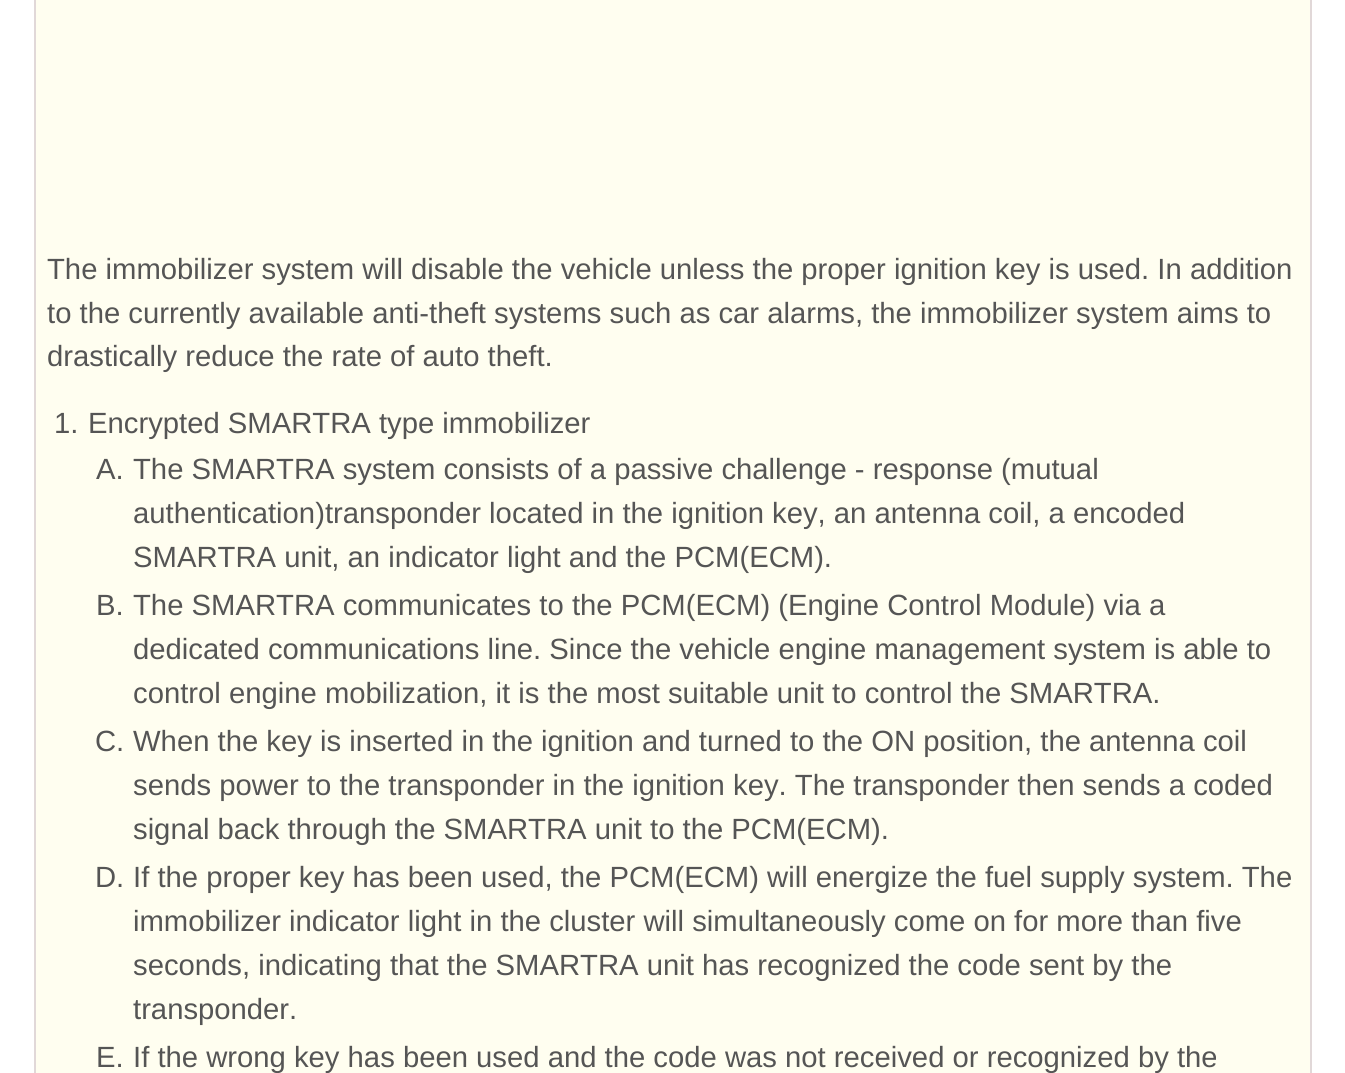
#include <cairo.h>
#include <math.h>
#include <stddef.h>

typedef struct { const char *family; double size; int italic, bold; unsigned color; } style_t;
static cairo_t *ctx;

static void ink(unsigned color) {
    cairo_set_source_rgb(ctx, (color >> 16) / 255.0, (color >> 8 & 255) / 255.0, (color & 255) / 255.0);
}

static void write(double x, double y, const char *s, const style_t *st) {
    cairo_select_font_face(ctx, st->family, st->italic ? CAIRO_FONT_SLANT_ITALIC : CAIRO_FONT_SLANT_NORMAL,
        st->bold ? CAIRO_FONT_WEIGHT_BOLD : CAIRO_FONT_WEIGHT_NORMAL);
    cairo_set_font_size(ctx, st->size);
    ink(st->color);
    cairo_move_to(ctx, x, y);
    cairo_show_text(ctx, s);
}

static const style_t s1 = {"Liberation Sans", 29.25, 0, 0, 0x555555};

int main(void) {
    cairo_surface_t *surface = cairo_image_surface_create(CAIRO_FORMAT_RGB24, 1345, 1073);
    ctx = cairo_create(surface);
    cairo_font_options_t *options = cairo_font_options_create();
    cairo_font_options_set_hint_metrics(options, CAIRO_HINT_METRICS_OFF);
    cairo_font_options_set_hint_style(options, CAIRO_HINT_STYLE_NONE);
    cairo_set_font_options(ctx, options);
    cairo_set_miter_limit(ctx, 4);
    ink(0xffffff);
    cairo_paint(ctx);
    ink(0xfffef0);
    cairo_rectangle(ctx, 35, -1, 1276, 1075);
    cairo_fill_preserve(ctx);
    ink(0xe1d8d8);
    cairo_stroke(ctx);
    write(47, 279, "The immobilizer system will disable the vehicle unless the proper ignition key is used. In addition", &s1);
    write(47, 323, "to the currently available anti-theft systems such as car alarms, the immobilizer system aims to", &s1);
    write(47, 366, "drastically reduce the rate of auto theft.", &s1);
    write(54, 433, "1.", &s1);
    write(88, 433, "Encrypted SMARTRA type immobilizer", &s1);
    write(96, 479, "A.", &s1);
    write(133, 479, "The SMARTRA system consists of a passive challenge - response (mutual", &s1);
    write(133, 523, "authentication)transponder located in the ignition key, an antenna coil, a encoded", &s1);
    write(133, 567, "SMARTRA unit, an indicator light and the PCM(ECM).", &s1);
    write(96, 615, "B.", &s1);
    write(133, 615, "The SMARTRA communicates to the PCM(ECM) (Engine Control Module) via a", &s1);
    write(133, 659, "dedicated communications line. Since the vehicle engine management system is able to", &s1);
    write(133, 703, "control engine mobilization, it is the most suitable unit to control the SMARTRA.", &s1);
    write(95, 751, "C.", &s1);
    write(133, 751, "When the key is inserted in the ignition and turned to the ON position, the antenna coil", &s1);
    write(133, 795, "sends power to the transponder in the ignition key. The transponder then sends a coded", &s1);
    write(133, 839, "signal back through the SMARTRA unit to the PCM(ECM).", &s1);
    write(95, 887, "D.", &s1);
    write(133, 887, "If the proper key has been used, the PCM(ECM) will energize the fuel supply system. The", &s1);
    write(133, 931, "immobilizer indicator light in the cluster will simultaneously come on for more than five", &s1);
    write(133, 975, "seconds, indicating that the SMARTRA unit has recognized the code sent by the", &s1);
    write(133, 1019, "transponder.", &s1);
    write(96, 1067, "E.", &s1);
    write(133, 1067, "If the wrong key has been used and the code was not received or recognized by the", &s1);
    cairo_surface_write_to_png(surface, "screenshot.png");
    cairo_font_options_destroy(options);
    cairo_destroy(ctx);
    cairo_surface_destroy(surface);
    return 0;
}
